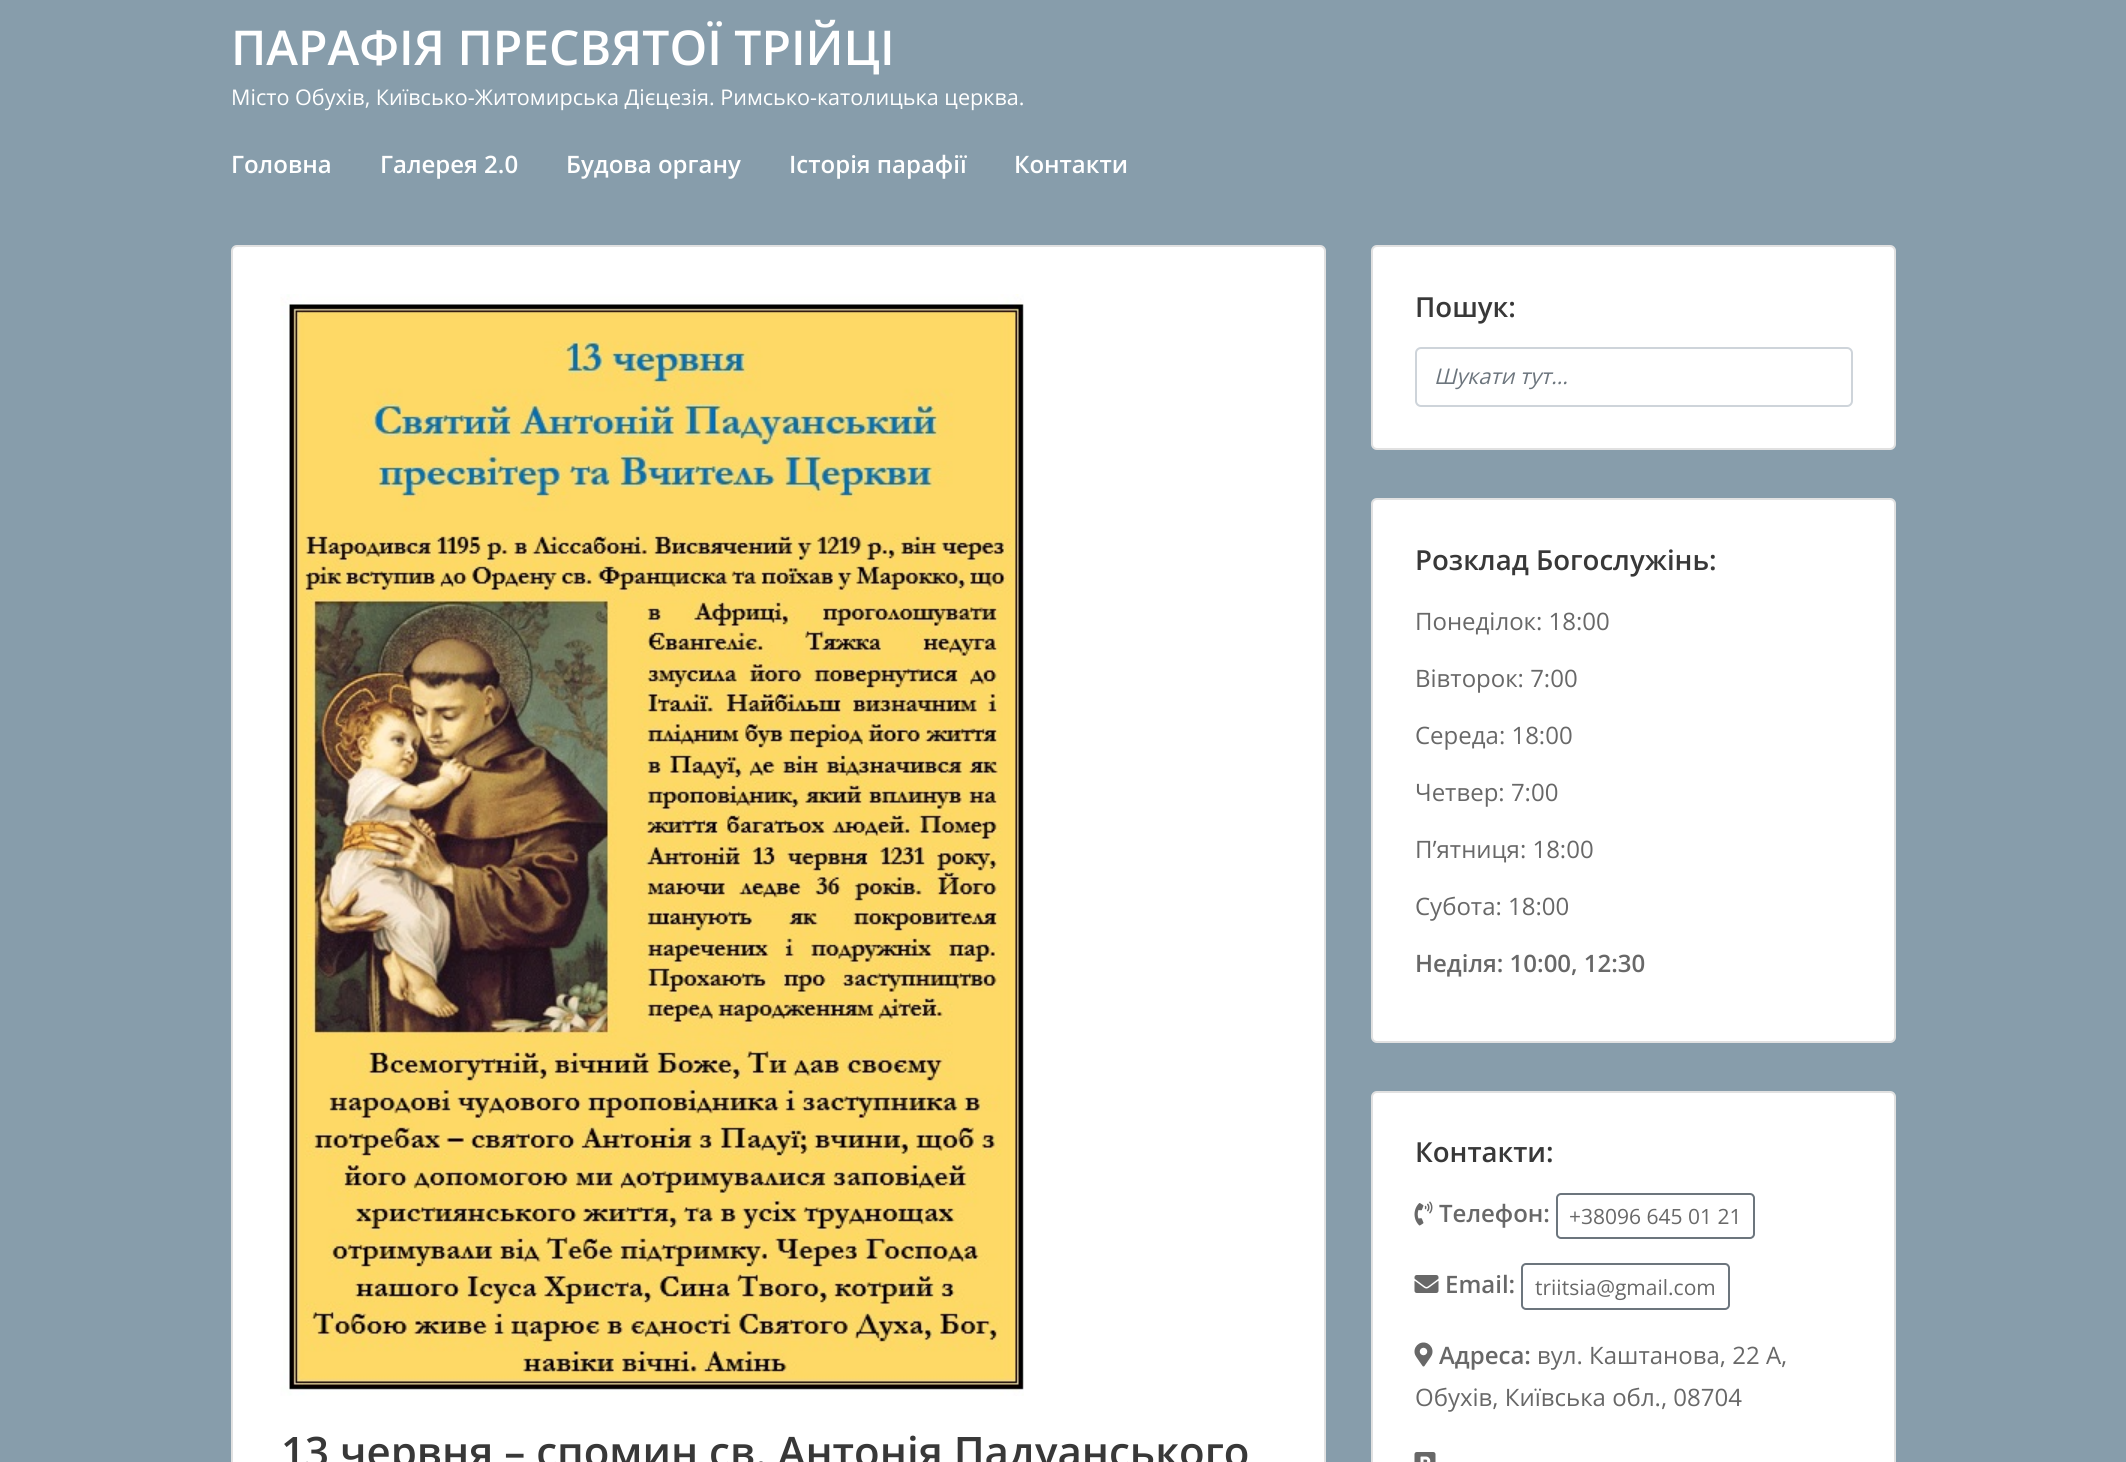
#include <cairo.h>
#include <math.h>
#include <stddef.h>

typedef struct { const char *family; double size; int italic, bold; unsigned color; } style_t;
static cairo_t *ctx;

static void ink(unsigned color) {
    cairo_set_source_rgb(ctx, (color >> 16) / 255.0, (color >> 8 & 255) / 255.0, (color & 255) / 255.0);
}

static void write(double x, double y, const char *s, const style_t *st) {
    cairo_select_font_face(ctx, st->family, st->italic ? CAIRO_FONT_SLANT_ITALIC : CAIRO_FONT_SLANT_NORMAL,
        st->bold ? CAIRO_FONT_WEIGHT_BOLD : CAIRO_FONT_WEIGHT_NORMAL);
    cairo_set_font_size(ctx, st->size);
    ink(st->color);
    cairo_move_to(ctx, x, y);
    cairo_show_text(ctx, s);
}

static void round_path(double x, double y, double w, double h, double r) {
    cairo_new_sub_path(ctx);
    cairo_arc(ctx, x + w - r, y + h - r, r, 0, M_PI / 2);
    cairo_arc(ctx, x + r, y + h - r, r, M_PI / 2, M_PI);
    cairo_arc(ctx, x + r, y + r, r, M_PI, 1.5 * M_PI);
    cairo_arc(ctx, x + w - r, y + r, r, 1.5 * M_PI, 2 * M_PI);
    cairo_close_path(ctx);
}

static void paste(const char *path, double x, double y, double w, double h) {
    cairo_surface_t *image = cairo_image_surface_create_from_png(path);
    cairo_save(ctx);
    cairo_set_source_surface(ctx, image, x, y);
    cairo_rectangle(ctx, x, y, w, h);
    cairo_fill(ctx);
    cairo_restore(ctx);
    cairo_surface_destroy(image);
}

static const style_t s1 = {"Open Sans SemiBold", 48, 0, 0, 0xffffff};
static const style_t s2 = {"Open Sans", 21.6, 0, 0, 0xffffff};
static const style_t s3 = {"Open Sans SemiBold", 24, 0, 0, 0xffffff};
static const style_t s4 = {"Open Sans SemiBold", 27.6, 0, 0, 0x383838};
static const style_t s5 = {"Open Sans", 21.6, 1, 0, 0x6c757d};
static const style_t s6 = {"Open Sans", 24, 0, 0, 0x686868};
static const style_t s7 = {"Open Sans SemiBold", 24, 0, 0, 0x686868};
static const style_t s8 = {"Open Sans", 21, 0, 0, 0x686868};
static const style_t s9 = {"Open Sans SemiBold", 42, 0, 0, 0x383838};

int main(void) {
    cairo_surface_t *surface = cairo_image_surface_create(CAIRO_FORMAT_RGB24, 2126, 1462);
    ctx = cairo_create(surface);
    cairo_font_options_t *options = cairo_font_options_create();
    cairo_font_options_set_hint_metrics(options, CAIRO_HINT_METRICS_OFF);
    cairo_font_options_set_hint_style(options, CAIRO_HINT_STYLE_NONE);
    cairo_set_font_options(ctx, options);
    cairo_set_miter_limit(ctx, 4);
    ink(0x879dab);
    cairo_paint(ctx);
    write(231, 65, "ПАРАФІЯ ПРЕСВЯТОЇ ТРІЙЦІ", &s1);
    write(231, 105, "Місто Обухів, Київсько-Житомирська Дієцезія. Римсько-католицька церква.", &s2);
    write(231, 173, "Головна", &s3);
    write(380, 173, "Галерея 2.0", &s3);
    write(566, 173, "Будова органу", &s3);
    write(789, 173, "Історія парафії", &s3);
    write(1014, 173, "Контакти", &s3);
    round_path(1371, 245, 525, 205, 6);
    cairo_fill(ctx);
    round_path(1372, 246, 523, 203, 5);
    cairo_set_source_rgba(ctx, 0, 0, 0, 0.12);
    cairo_stroke(ctx);
    write(1415, 317, "Пошук:", &s4);
    round_path(1416, 348, 436, 58, 5);
    ink(0xced4da);
    cairo_stroke(ctx);
    write(1434, 384, "Шукати тут…", &s5);
    ink(0xffffff);
    round_path(1371, 498, 525, 545, 6);
    cairo_fill(ctx);
    round_path(1372, 499, 523, 543, 5);
    cairo_set_source_rgba(ctx, 0, 0, 0, 0.12);
    cairo_stroke(ctx);
    write(1415, 570, "Розклад Богослужінь:", &s4);
    write(1415, 630, "Понеділок: 18:00", &s6);
    write(1415, 687, "Вівторок: 7:00", &s6);
    write(1415, 744, "Середа: 18:00", &s6);
    write(1415, 801, "Четвер: 7:00", &s6);
    write(1415, 858, "П’ятниця: 18:00", &s6);
    write(1415, 915, "Субота: 18:00", &s6);
    write(1415, 972, "Неділя: 10:00, 12:30", &s7);
    ink(0xffffff);
    round_path(1371, 1091, 525, 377, 6);
    cairo_fill(ctx);
    round_path(1372, 1092, 523, 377, 5);
    cairo_set_source_rgba(ctx, 0, 0, 0, 0.12);
    cairo_stroke(ctx);
    write(1415, 1162, "Контакти:", &s4);
    paste("pic1.png", 1414, 1201, 19, 25);
    write(1439, 1222, "Телефон:", &s7);
    round_path(1557, 1194, 197, 44, 4);
    ink(0x6c757d);
    cairo_stroke(ctx);
    write(1569, 1224, "+38096 645 01 21", &s8);
    paste("pic2.png", 1414, 1275, 25, 18);
    write(1445, 1293, "Email:", &s7);
    round_path(1522, 1264, 207, 45, 4);
    ink(0x6c757d);
    cairo_stroke(ctx);
    write(1535, 1295, "triitsia@gmail.com", &s8);
    paste("pic3.png", 1414, 1342, 19, 25);
    write(1439, 1364, "Адреса:", &s7);
    write(1537, 1364, "вул. Каштанова, 22 А,", &s6);
    write(1415, 1406, "Обухів, Київська обл., 08704", &s6);
    paste("pic4.png", 1414, 1452, 22, 10);
    ink(0xffffff);
    round_path(231, 245, 1095, 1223, 6);
    cairo_fill(ctx);
    round_path(232, 246, 1093, 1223, 5);
    cairo_set_source_rgba(ctx, 0, 0, 0, 0.12);
    cairo_stroke(ctx);
    paste("pic5.png", 280, 294, 744, 1102);
    write(281, 1467, "13 червня – спомин св. Антонія Падуанського", &s9);
    cairo_surface_write_to_png(surface, "screenshot.png");
    cairo_font_options_destroy(options);
    cairo_destroy(ctx);
    cairo_surface_destroy(surface);
    return 0;
}
